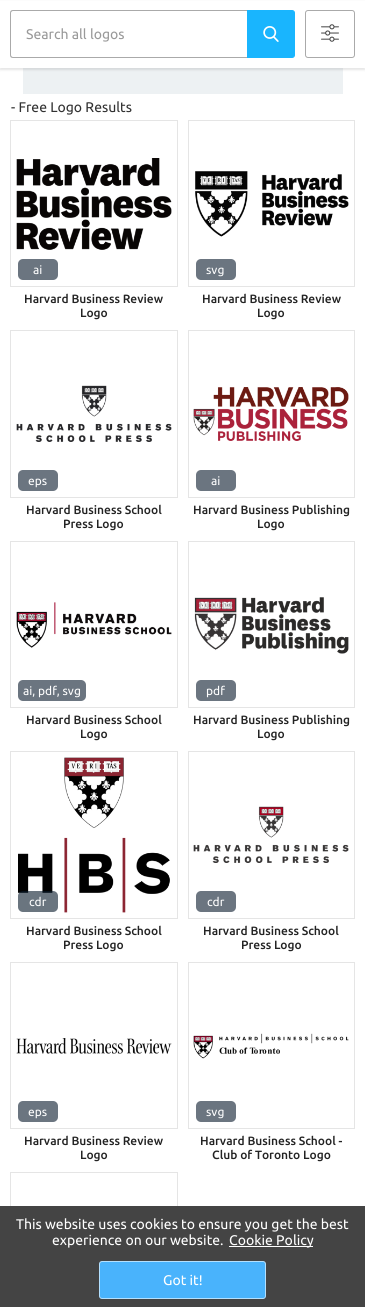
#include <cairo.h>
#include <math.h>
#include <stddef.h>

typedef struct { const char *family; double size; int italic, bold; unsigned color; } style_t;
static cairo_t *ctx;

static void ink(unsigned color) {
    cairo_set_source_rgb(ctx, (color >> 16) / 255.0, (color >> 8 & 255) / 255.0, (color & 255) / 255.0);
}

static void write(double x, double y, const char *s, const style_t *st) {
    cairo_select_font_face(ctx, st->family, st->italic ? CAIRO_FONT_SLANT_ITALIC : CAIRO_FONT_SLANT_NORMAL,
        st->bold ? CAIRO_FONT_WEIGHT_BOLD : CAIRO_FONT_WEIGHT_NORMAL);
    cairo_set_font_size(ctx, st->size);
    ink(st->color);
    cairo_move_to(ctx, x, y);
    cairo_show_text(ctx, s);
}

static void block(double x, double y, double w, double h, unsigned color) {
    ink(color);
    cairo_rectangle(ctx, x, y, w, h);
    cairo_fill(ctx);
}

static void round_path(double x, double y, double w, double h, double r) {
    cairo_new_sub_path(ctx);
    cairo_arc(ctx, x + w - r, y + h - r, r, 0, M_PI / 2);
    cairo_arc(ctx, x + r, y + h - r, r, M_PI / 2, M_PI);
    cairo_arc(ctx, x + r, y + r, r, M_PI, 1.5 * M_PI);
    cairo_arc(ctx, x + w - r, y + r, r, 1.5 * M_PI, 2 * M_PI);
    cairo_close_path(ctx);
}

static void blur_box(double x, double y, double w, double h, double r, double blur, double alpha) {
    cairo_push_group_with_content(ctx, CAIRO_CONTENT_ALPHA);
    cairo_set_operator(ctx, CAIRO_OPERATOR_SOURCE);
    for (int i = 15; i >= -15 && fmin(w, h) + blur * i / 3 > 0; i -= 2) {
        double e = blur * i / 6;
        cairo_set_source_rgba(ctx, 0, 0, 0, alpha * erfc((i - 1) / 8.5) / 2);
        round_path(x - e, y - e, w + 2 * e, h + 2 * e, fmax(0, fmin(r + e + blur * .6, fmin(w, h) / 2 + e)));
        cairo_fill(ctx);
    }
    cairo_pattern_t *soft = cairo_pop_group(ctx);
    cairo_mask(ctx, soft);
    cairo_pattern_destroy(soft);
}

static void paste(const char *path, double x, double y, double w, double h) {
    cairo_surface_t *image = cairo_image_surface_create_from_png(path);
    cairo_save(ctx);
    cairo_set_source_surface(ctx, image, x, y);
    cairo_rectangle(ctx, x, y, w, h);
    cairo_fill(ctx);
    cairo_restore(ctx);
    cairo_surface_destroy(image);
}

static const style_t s1 = {"Ubuntu", 14, 0, 0, 0x999999};
static const style_t s2 = {"Ubuntu", 14, 0, 0, 0x313131};
static const style_t s3 = {"Ubuntu", 12, 0, 0, 0xffffff};
static const style_t s4 = {"Ubuntu Medium", 12, 0, 0, 0x232323};
static const style_t s5 = {"Ubuntu", 14, 0, 0, 0xffffff};

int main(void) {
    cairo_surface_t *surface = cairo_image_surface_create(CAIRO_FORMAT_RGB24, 365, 1307);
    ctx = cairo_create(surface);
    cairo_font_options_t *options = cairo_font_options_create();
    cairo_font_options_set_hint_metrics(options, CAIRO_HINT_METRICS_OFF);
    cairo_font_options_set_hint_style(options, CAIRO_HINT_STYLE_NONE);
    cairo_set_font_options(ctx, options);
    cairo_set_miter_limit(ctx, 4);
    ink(0xffffff);
    cairo_paint(ctx);
    block(23, 68, 320, 26, 0xedf1f3);
    ink(0x000000);
    blur_box(0, 2, 365, 68, 0, 1, 0.1);
    block(0, 1, 365, 67, 0xffffff);
    ink(0xaaaaaa);
    cairo_new_path(ctx);
    cairo_move_to(ctx, 13, 10);
    cairo_curve_to(ctx, 11, 10, 10, 11, 10, 13);
    cairo_line_to(ctx, 10, 55);
    cairo_curve_to(ctx, 10, 57, 11, 58, 13, 58);
    cairo_line_to(ctx, 247, 58);
    cairo_line_to(ctx, 247, 57);
    cairo_line_to(ctx, 13, 57);
    cairo_curve_to(ctx, 12, 57, 11, 56, 11, 55);
    cairo_line_to(ctx, 11, 13);
    cairo_curve_to(ctx, 11, 12, 12, 11, 13, 11);
    cairo_line_to(ctx, 247, 11);
    cairo_line_to(ctx, 247, 10);
    cairo_close_path(ctx);
    cairo_fill(ctx);
    write(26, 39, "Search all logos", &s1);
    ink(0x19b5fe);
    cairo_new_path(ctx);
    cairo_move_to(ctx, 247.5, 10.5);
    cairo_line_to(ctx, 292, 10.5);
    cairo_curve_to(ctx, 293.5, 10.5, 294.5, 11.5, 294.5, 13);
    cairo_line_to(ctx, 294.5, 55);
    cairo_curve_to(ctx, 294.5, 56.5, 293.5, 57.5, 292, 57.5);
    cairo_line_to(ctx, 247.5, 57.5);
    cairo_close_path(ctx);
    cairo_fill_preserve(ctx);
    cairo_set_line_width(ctx, 1);
    cairo_stroke(ctx);
    paste("pic1.png", 263, 26, 16, 16);
    round_path(305.5, 10.5, 49, 47, 2.5);
    ink(0xaaaaaa);
    cairo_stroke(ctx);
    paste("pic2.png", 321, 24, 18, 18);
    write(11, 112, "- Free Logo Results", &s2);
    cairo_rectangle(ctx, 10.5, 120.5, 167, 166);
    ink(0xe5e5e5);
    cairo_stroke(ctx);
    paste("pic3.png", 16, 158, 156, 92);
    ink(0x6b7580);
    round_path(18, 259, 40, 21, 5);
    cairo_fill(ctx);
    write(33, 274, "ai", &s3);
    write(24, 303, "Harvard Business Review", &s4);
    write(80, 317, "Logo", &s4);
    cairo_rectangle(ctx, 188.5, 120.5, 166, 166);
    ink(0xe5e5e5);
    cairo_stroke(ctx);
    paste("pic4.png", 195, 171, 154, 66);
    ink(0x6b7580);
    round_path(196, 259, 40, 21, 5);
    cairo_fill(ctx);
    write(206, 274, "svg", &s3);
    write(202, 303, "Harvard Business Review", &s4);
    write(257, 317, "Logo", &s4);
    cairo_rectangle(ctx, 10.5, 330.5, 167, 167);
    ink(0xe5e5e5);
    cairo_stroke(ctx);
    paste("pic5.png", 16, 385, 156, 57);
    ink(0x6b7580);
    round_path(18, 470, 40, 21, 5);
    cairo_fill(ctx);
    write(28, 485, "eps", &s3);
    write(26, 514, "Harvard Business School", &s4);
    write(63, 528, "Press Logo", &s4);
    cairo_rectangle(ctx, 188.5, 330.5, 166, 167);
    ink(0xe5e5e5);
    cairo_stroke(ctx);
    paste("pic6.png", 193, 387, 156, 54);
    ink(0x6b7580);
    round_path(196, 470, 40, 21, 5);
    cairo_fill(ctx);
    write(211, 485, "ai", &s3);
    write(193, 514, "Harvard Business Publishing", &s4);
    write(257, 528, "Logo", &s4);
    cairo_rectangle(ctx, 10.5, 541.5, 167, 166);
    ink(0xe5e5e5);
    cairo_stroke(ctx);
    paste("pic7.png", 16, 602, 156, 46);
    ink(0x6b7580);
    round_path(18, 680, 68, 21, 5);
    cairo_fill(ctx);
    write(23, 695, "ai, pdf, svg", &s3);
    write(26, 724, "Harvard Business School", &s4);
    write(80, 738, "Logo", &s4);
    cairo_rectangle(ctx, 188.5, 541.5, 166, 166);
    ink(0xe5e5e5);
    cairo_stroke(ctx);
    paste("pic8.png", 194, 597, 155, 57);
    ink(0x6b7580);
    round_path(196, 680, 40, 21, 5);
    cairo_fill(ctx);
    write(206, 695, "pdf", &s3);
    write(193, 724, "Harvard Business Publishing", &s4);
    write(257, 738, "Logo", &s4);
    cairo_rectangle(ctx, 10.5, 751.5, 167, 167);
    ink(0xe5e5e5);
    cairo_stroke(ctx);
    paste("pic9.png", 18, 757, 152, 156);
    cairo_set_source_rgba(ctx, 0.031, 0.098, 0.169, 0.6);
    round_path(18, 891, 40, 21, 5);
    cairo_fill(ctx);
    write(29, 906, "cdr", &s3);
    write(26, 935, "Harvard Business School", &s4);
    write(63, 949, "Press Logo", &s4);
    cairo_rectangle(ctx, 188.5, 751.5, 166, 167);
    ink(0xe5e5e5);
    cairo_stroke(ctx);
    paste("pic10.png", 193, 806, 156, 57);
    ink(0x6b7580);
    round_path(196, 891, 40, 21, 5);
    cairo_fill(ctx);
    write(207, 906, "cdr", &s3);
    write(203, 935, "Harvard Business School", &s4);
    write(241, 949, "Press Logo", &s4);
    cairo_rectangle(ctx, 10.5, 962.5, 167, 166);
    ink(0xe5e5e5);
    cairo_stroke(ctx);
    paste("pic11.png", 16, 1038, 156, 16);
    ink(0x6b7580);
    round_path(18, 1101, 40, 21, 5);
    cairo_fill(ctx);
    write(28, 1116, "eps", &s3);
    write(24, 1145, "Harvard Business Review", &s4);
    write(80, 1159, "Logo", &s4);
    cairo_rectangle(ctx, 188.5, 962.5, 166, 166);
    ink(0xe5e5e5);
    cairo_stroke(ctx);
    paste("pic12.png", 193, 1033, 156, 26);
    ink(0x6b7580);
    round_path(196, 1101, 40, 21, 5);
    cairo_fill(ctx);
    write(206, 1116, "svg", &s3);
    write(200, 1145, "Harvard Business School -", &s4);
    write(212, 1159, "Club of Toronto Logo", &s4);
    cairo_rectangle(ctx, 10.5, 1172.5, 167, 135);
    ink(0xe5e5e5);
    cairo_stroke(ctx);
    block(0, 1206, 365, 101, 0x444444);
    write(16, 1229, "This website uses cookies to ensure you get the best", &s5);
    write(52, 1245, "experience on our website.", &s5);
    block(229, 1246, 84, 1, 0xffffff);
    write(229, 1245, "Cookie Policy", &s5);
    ink(0x49b3fc);
    round_path(99.5, 1261.5, 166, 37, 2.5);
    cairo_fill_preserve(ctx);
    ink(0xb3e0ff);
    cairo_stroke(ctx);
    write(163, 1285, "Got it!", &s5);
    cairo_surface_write_to_png(surface, "screenshot.png");
    cairo_font_options_destroy(options);
    cairo_destroy(ctx);
    cairo_surface_destroy(surface);
    return 0;
}
